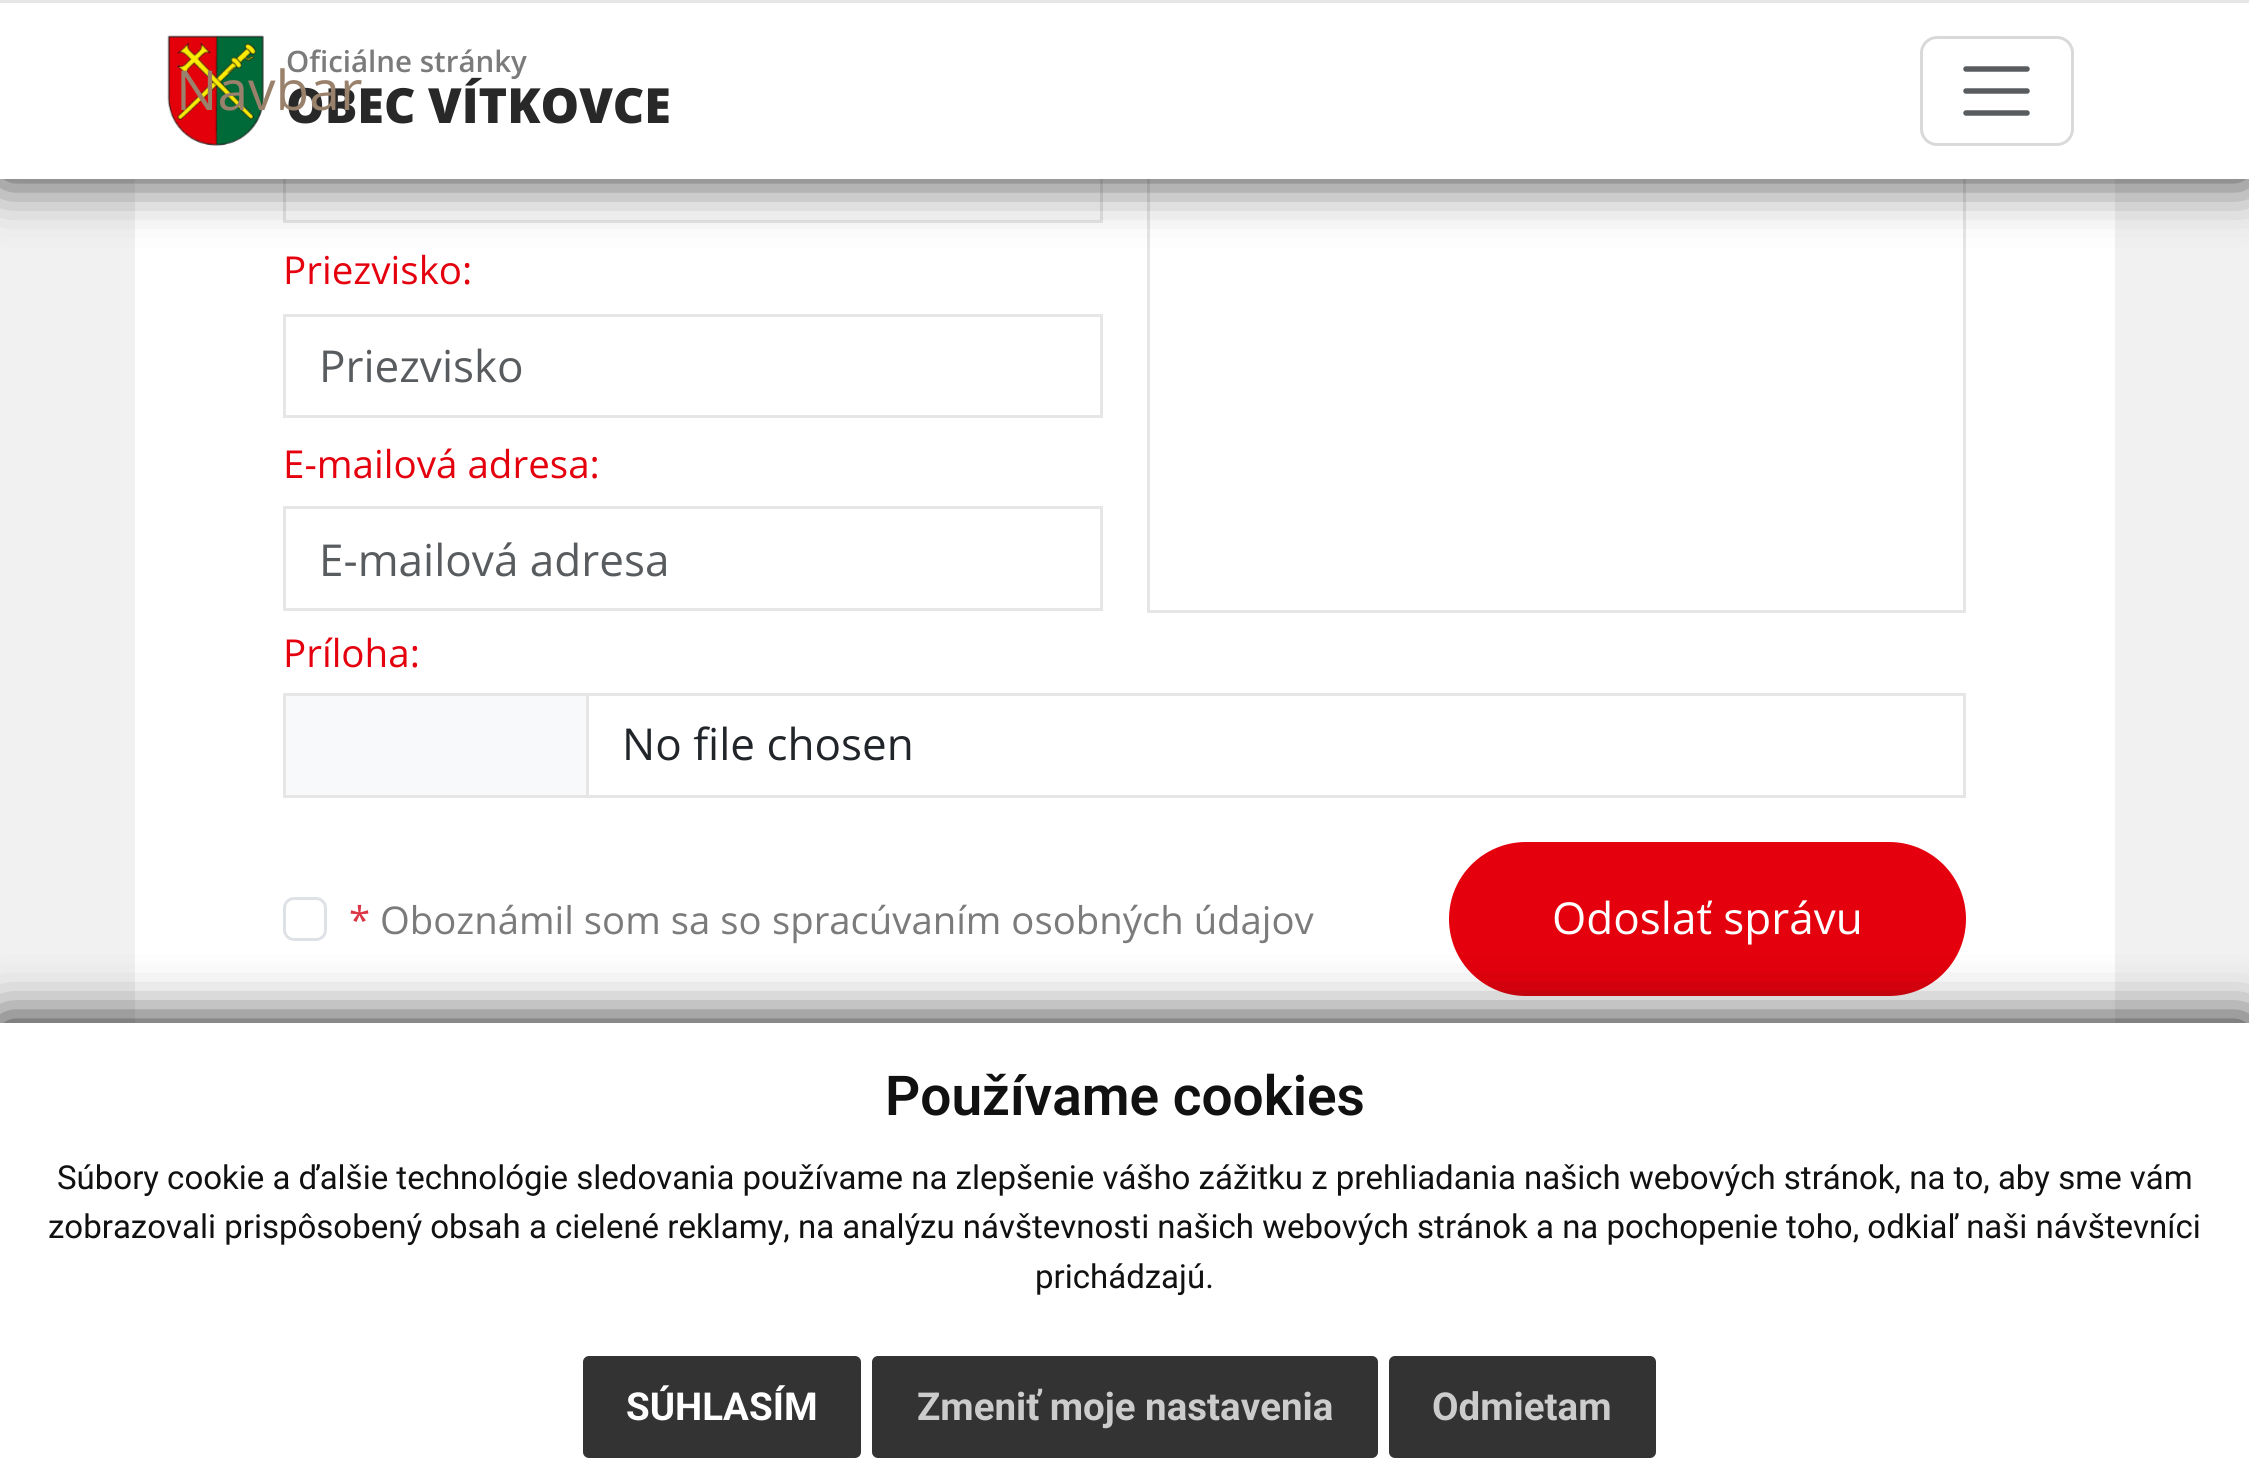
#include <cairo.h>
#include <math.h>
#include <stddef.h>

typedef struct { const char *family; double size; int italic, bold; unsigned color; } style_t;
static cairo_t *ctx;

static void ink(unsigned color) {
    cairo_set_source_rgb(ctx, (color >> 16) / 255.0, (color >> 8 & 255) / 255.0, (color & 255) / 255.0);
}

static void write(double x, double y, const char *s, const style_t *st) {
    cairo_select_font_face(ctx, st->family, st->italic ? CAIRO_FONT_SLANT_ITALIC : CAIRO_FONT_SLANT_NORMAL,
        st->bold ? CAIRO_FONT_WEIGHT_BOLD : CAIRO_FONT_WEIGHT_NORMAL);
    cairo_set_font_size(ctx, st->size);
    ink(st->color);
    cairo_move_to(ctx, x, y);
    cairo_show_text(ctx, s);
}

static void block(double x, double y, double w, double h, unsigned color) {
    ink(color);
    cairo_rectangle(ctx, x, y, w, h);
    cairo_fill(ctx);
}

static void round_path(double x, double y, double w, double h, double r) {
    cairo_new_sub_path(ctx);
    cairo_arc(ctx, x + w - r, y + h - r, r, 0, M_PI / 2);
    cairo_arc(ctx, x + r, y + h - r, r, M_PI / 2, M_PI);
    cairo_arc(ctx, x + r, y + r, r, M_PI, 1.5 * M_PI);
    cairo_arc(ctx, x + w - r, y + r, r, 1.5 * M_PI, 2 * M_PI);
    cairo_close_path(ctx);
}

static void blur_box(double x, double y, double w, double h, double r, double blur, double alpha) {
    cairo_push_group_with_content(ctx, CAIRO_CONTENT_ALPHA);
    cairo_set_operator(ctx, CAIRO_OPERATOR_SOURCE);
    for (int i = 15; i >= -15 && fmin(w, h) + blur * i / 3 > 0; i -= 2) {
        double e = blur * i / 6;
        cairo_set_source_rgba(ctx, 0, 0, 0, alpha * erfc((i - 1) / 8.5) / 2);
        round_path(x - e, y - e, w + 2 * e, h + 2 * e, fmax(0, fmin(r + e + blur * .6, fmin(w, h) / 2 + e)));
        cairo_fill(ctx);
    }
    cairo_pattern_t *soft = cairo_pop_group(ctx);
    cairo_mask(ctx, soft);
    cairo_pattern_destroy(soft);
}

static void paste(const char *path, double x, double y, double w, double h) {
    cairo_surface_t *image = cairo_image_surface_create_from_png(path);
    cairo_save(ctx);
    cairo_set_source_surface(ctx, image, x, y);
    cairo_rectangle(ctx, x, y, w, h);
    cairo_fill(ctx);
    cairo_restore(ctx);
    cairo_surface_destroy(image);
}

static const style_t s1 = {"Open Sans ExtraBold", 48.5, 0, 0, 0x282828};
static const style_t s2 = {"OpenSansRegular", 55, 0, 0, 0x9a816b};
static const style_t s3 = {"Open Sans SemiBold", 29.5, 0, 0, 0x7b7b7b};
static const style_t s4 = {"OpenSansRegular", 38.5, 0, 0, 0xe4000d};
static const style_t s5 = {"OpenSansRegular", 44, 0, 0, 0x595c5f};
static const style_t s6 = {"OpenSansRegular", 44, 0, 0, 0x212529};
static const style_t s7 = {"OpenSansRegular", 38.25, 0, 0, 0xdc3545};
static const style_t s8 = {"OpenSansRegular", 38.25, 0, 0, 0x7b7b7b};
static const style_t s9 = {"OpenSansRegular", 44, 0, 0, 0xffffff};
static const style_t s10 = {"Roboto SemiBold", 55, 0, 0, 0x111111};
static const style_t s11 = {"Roboto", 33, 0, 0, 0x111111};
static const style_t s12 = {"Roboto", 38.5, 0, 1, 0xffffff};
static const style_t s13 = {"Roboto", 38.5, 0, 1, 0xcccccc};

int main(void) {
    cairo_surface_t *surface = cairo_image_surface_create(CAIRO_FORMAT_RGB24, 2249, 1482);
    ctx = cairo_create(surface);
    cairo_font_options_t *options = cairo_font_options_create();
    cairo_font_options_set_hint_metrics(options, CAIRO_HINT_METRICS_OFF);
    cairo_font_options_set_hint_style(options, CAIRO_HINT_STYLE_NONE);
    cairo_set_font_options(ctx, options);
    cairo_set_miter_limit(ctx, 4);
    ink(0xf1f1f1);
    cairo_paint(ctx);
    block(135, 179, 1980, 844, 0xffffff);
    cairo_rectangle(ctx, 284.5, 119.5, 817, 102);
    ink(0xe6e6e6);
    cairo_set_line_width(ctx, 3);
    cairo_stroke(ctx);
    cairo_rectangle(ctx, 1148.5, 114.5, 816, 497);
    cairo_stroke(ctx);
    ink(0x333333);
    blur_box(0, 0, 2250, 179, 0, 27.5, 1);
    block(0, 3, 2249, 176, 0xffffff);
    block(0, 0, 2249, 3, 0xe6e6e6);
    paste("pic1.png", 167, 35, 97, 111);
    write(286, 123, "OBEC VÍTKOVCE", &s1);
    write(176, 110, "Navbar", &s2);
    round_path(1921.5, 37.5, 151, 107, 15.5);
    ink(0xd9d9d9);
    cairo_stroke(ctx);
    cairo_new_path(ctx);
    cairo_move_to(ctx, 1966, 69);
    cairo_line_to(ctx, 2027, 69);
    cairo_move_to(ctx, 1966, 91);
    cairo_line_to(ctx, 2027, 91);
    cairo_move_to(ctx, 1966, 113);
    cairo_line_to(ctx, 2027, 113);
    ink(0x595c5f);
    cairo_set_line_width(ctx, 5.5);
    cairo_set_line_cap(ctx, CAIRO_LINE_CAP_ROUND);
    cairo_stroke(ctx);
    write(286, 72, "Oficiálne stránky", &s3);
    write(283, 284, "Priezvisko:", &s4);
    cairo_rectangle(ctx, 284.5, 315.5, 817, 101);
    ink(0xe6e6e6);
    cairo_set_line_width(ctx, 3);
    cairo_set_line_cap(ctx, CAIRO_LINE_CAP_BUTT);
    cairo_stroke(ctx);
    write(319, 382, "Priezvisko", &s5);
    write(283, 478, "E-mailová adresa:", &s4);
    cairo_rectangle(ctx, 284.5, 507.5, 817, 102);
    ink(0xe6e6e6);
    cairo_stroke(ctx);
    write(319, 576, "E-mailová adresa", &s5);
    write(283, 667, "Príloha:", &s4);
    cairo_rectangle(ctx, 284.5, 694.5, 1680, 102);
    ink(0xe6e6e6);
    cairo_stroke(ctx);
    block(286, 696, 300, 99, 0xf8f9fa);
    block(586, 696, 3, 99, 0xe6e6e6);
    write(622, 760, "No file chosen", &s6);
    round_path(284.5, 898.5, 41, 41, 9.5);
    ink(0xdee2e6);
    cairo_stroke(ctx);
    write(349, 934, "*", &s7);
    write(380, 934, "Oboznámil som sa so", &s8);
    write(772, 934, "spracúvaním osobných údajov", &s8);
    ink(0xe4000d);
    round_path(1449, 842, 517, 154, 77);
    cairo_fill(ctx);
    write(1552, 934, "Odoslať správu", &s9);
    ink(0x111111);
    blur_box(0, 1023, 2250, 459, 0, 27.5, 1);
    block(0, 1023, 2249, 459, 0xffffff);
    write(885, 1115, "Používame cookies", &s10);
    write(57, 1189, "Súbory cookie a ďalšie technológie sledovania používame na zlepšenie vášho zážitku z prehliadania našich webových stránok, na to, aby sme vám", &s11);
    write(48, 1238, "zobrazovali prispôsobený obsah a cielené reklamy, na analýzu návštevnosti našich webových stránok a na pochopenie toho, odkiaľ naši návštevníci", &s11);
    write(1035, 1288, "prichádzajú.", &s11);
    ink(0x333333);
    round_path(583, 1356, 278, 102, 6);
    cairo_fill(ctx);
    write(626, 1420, "SÚHLASÍM", &s12);
    ink(0x333333);
    round_path(872, 1356, 506, 102, 6);
    cairo_fill(ctx);
    write(917, 1420, "Zmeniť moje nastavenia", &s13);
    ink(0x333333);
    round_path(1389, 1356, 267, 102, 6);
    cairo_fill(ctx);
    write(1432, 1420, "Odmietam", &s13);
    cairo_surface_write_to_png(surface, "screenshot.png");
    cairo_font_options_destroy(options);
    cairo_destroy(ctx);
    cairo_surface_destroy(surface);
    return 0;
}
